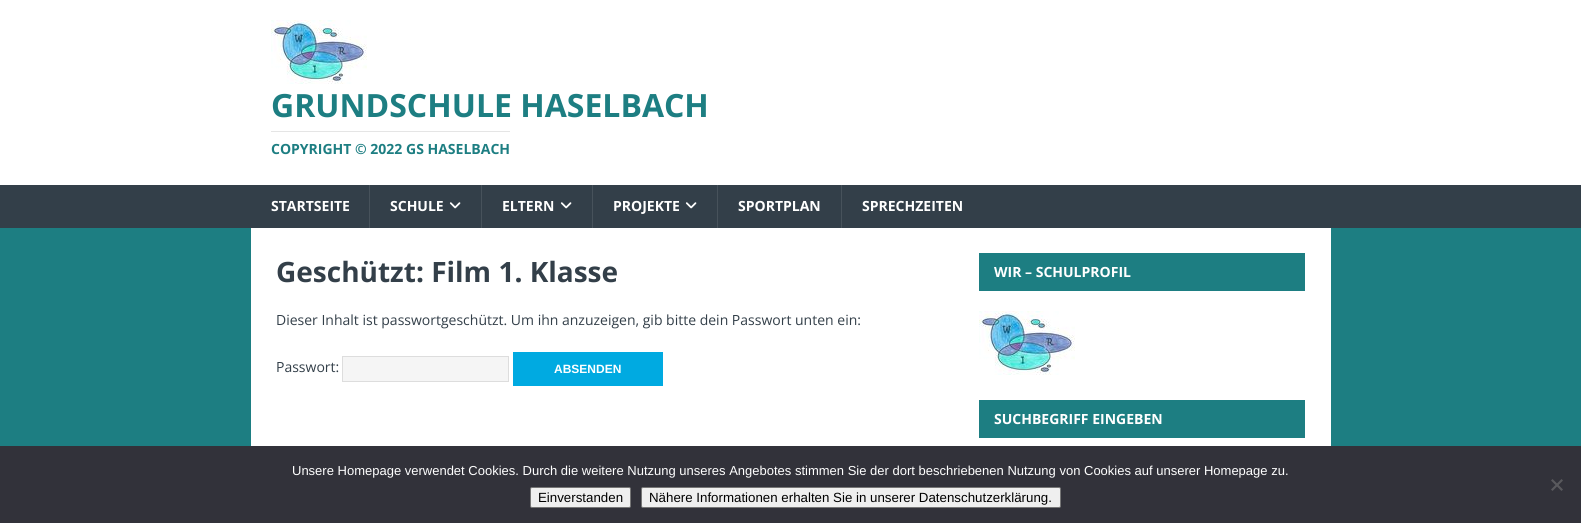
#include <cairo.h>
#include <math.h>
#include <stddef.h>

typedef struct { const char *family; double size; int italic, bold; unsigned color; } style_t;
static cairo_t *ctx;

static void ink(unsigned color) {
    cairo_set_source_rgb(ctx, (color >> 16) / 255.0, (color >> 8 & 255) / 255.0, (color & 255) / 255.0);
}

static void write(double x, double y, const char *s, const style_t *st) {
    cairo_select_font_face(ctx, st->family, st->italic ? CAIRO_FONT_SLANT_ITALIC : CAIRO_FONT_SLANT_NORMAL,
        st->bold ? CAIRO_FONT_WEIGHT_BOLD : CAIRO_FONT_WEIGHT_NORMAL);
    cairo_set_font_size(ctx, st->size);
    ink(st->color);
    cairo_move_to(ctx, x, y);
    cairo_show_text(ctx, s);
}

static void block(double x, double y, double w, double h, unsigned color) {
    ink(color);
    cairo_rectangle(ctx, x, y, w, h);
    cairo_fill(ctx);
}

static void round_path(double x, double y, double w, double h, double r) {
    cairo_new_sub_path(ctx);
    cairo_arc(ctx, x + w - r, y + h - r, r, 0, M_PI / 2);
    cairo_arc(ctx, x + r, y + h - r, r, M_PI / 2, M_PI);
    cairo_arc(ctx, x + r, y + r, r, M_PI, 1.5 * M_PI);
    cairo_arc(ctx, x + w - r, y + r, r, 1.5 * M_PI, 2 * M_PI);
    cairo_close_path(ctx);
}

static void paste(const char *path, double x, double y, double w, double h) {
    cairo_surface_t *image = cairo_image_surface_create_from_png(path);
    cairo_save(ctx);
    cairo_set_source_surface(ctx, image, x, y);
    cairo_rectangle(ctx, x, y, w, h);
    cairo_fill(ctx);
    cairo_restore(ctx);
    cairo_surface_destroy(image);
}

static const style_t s1 = {"Open Sans", 32, 0, 1, 0x1d7e82};
static const style_t s2 = {"Open Sans", 14, 0, 1, 0x1d7e82};
static const style_t s3 = {"Open Sans", 14, 0, 1, 0xffffff};
static const style_t s4 = {"Open Sans", 28, 0, 1, 0x333f49};
static const style_t s5 = {"Open Sans", 14, 0, 0, 0x333f49};
static const style_t s6 = {"Liberation Sans", 12, 0, 1, 0xffffff};
static const style_t s7 = {"Liberation Sans", 13, 0, 0, 0xffffff};
static const style_t s8 = {"Liberation Sans", 13.3, 0, 0, 0x000000};

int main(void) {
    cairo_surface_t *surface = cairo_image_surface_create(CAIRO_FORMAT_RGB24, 1581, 523);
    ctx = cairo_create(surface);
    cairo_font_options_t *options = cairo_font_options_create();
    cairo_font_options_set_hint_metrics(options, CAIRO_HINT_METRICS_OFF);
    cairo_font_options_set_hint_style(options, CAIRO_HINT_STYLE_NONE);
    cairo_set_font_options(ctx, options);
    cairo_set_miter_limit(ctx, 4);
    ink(0x1d7e82);
    cairo_paint(ctx);
    block(0, 0, 1581, 185, 0xffffff);
    paste("pic1.png", 271, 20, 96, 64);
    write(271, 117, "GRUNDSCHULE HASELBACH", &s1);
    block(271, 131, 239, 1, 0xe5e5e5);
    write(271, 154, "COPYRIGHT © 2022 GS HASELBACH", &s2);
    block(0, 185, 1581, 43, 0x333f49);
    write(271, 211, "STARTSEITE", &s3);
    block(369, 185, 1, 43, 0x47525b);
    write(390, 211, "SCHULE", &s3);
    paste("pic2.png", 449, 202, 12, 7);
    block(481, 185, 1, 43, 0x47525b);
    write(502, 211, "ELTERN", &s3);
    paste("pic2.png", 560, 202, 12, 7);
    block(592, 185, 1, 43, 0x47525b);
    write(613, 211, "PROJEKTE", &s3);
    paste("pic2.png", 685, 202, 12, 7);
    block(717, 185, 1, 43, 0x47525b);
    write(738, 211, "SPORTPLAN", &s3);
    block(841, 185, 1, 43, 0x47525b);
    write(862, 211, "SPRECHZEITEN", &s3);
    block(251, 228, 1080, 218, 0xffffff);
    write(276, 282, "Geschützt: Film 1. Klasse", &s4);
    write(276, 325, "Dieser Inhalt ist passwortgeschützt. Um ihn anzuzeigen, gib bitte dein Passwort unten ein:", &s5);
    write(276, 372, "Passwort:", &s5);
    ink(0xf5f5f5);
    cairo_rectangle(ctx, 342.5, 356.5, 166, 25);
    cairo_fill_preserve(ctx);
    ink(0xdddddd);
    cairo_set_line_width(ctx, 1);
    cairo_stroke(ctx);
    block(513, 352, 150, 34, 0x00aae1);
    write(554, 373, "ABSENDEN", &s6);
    block(979, 253, 326, 38, 0x1d7e82);
    write(994, 277, "WIR – SCHULPROFIL", &s3);
    paste("pic1.png", 979, 311, 96, 64);
    block(979, 400, 326, 38, 0x1d7e82);
    write(994, 424, "SUCHBEGRIFF EINGEBEN", &s3);
    block(0, 446, 1581, 77, 0x32323a);
    write(292, 475, "Unsere Homepage verwendet Cookies. Durch die weitere Nutzung unseres Angebotes stimmen Sie der dort beschriebenen Nutzung von Cookies auf unserer Homepage zu.", &s7);
    ink(0x59595d);
    cairo_new_path(ctx);
    cairo_move_to(ctx, 1561.5, 479);
    cairo_line_to(ctx, 1563, 480.5);
    cairo_line_to(ctx, 1552.5, 491);
    cairo_line_to(ctx, 1551, 489.5);
    cairo_close_path(ctx);
    cairo_fill(ctx);
    cairo_new_path(ctx);
    cairo_move_to(ctx, 1551, 480.5);
    cairo_line_to(ctx, 1552.5, 479);
    cairo_line_to(ctx, 1563, 489.5);
    cairo_line_to(ctx, 1561.5, 491);
    cairo_close_path(ctx);
    cairo_fill(ctx);
    ink(0xefefef);
    round_path(530.5, 487.5, 100, 20, 1.5);
    cairo_fill_preserve(ctx);
    ink(0x767676);
    cairo_stroke(ctx);
    write(538, 502, "Einverstanden", &s8);
    ink(0xefefef);
    round_path(641.5, 487.5, 419, 20, 1.5);
    cairo_fill_preserve(ctx);
    ink(0x767676);
    cairo_stroke(ctx);
    write(649, 502, "Nähere Informationen erhalten Sie in unserer Datenschutzerklärung.", &s8);
    cairo_surface_write_to_png(surface, "screenshot.png");
    cairo_font_options_destroy(options);
    cairo_destroy(ctx);
    cairo_surface_destroy(surface);
    return 0;
}
